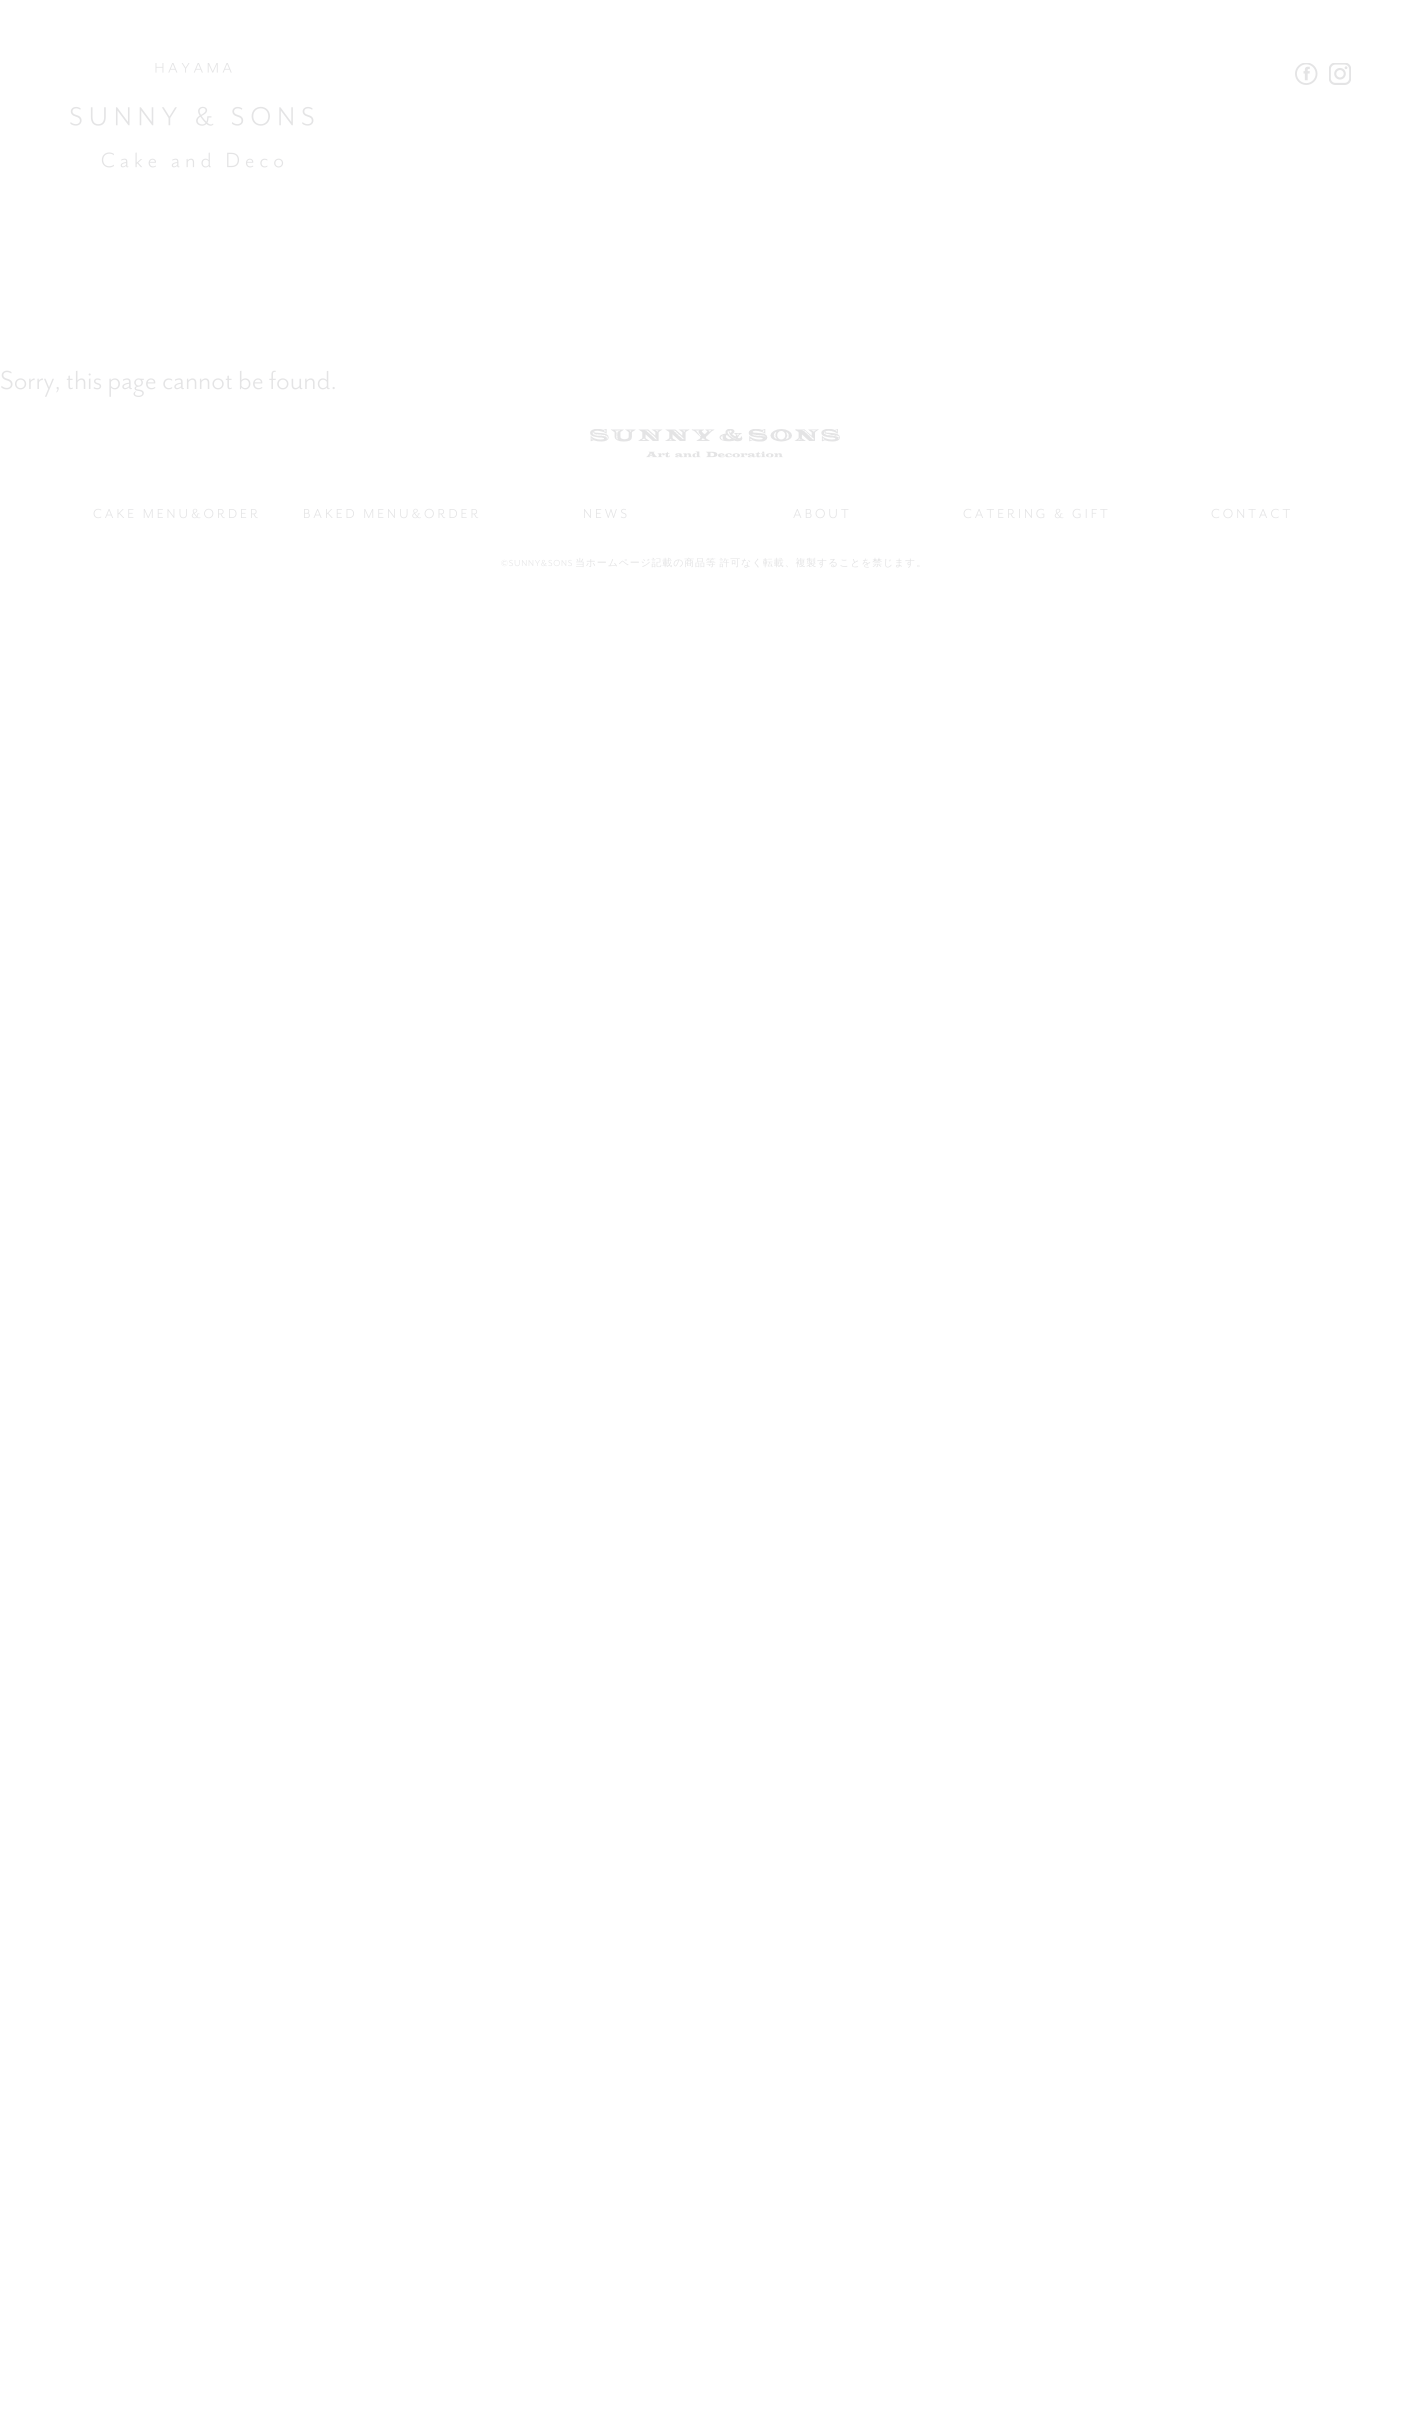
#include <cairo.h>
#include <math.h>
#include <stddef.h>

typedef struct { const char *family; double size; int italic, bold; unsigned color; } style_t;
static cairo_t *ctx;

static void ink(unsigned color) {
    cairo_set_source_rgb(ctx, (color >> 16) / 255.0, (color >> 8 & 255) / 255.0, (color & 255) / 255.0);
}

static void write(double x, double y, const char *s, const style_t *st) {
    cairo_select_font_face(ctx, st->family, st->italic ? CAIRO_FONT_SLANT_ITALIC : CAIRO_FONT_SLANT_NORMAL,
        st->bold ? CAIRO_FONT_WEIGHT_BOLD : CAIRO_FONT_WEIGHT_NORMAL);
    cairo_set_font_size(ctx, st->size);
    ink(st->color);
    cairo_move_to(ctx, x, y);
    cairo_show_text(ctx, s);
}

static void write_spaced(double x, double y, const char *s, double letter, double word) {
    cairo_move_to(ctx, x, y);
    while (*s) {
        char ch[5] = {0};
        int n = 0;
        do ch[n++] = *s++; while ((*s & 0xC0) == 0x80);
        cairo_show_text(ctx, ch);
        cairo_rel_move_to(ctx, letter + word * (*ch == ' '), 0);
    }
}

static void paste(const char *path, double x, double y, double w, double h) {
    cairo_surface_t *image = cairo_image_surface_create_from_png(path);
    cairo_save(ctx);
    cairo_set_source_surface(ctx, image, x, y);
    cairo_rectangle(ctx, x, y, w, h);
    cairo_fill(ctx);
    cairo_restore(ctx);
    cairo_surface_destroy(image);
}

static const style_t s1 = {"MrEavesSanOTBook", 30, 0, 0, 0xe4e4e5};

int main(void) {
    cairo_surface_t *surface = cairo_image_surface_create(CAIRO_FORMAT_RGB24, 1428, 2433);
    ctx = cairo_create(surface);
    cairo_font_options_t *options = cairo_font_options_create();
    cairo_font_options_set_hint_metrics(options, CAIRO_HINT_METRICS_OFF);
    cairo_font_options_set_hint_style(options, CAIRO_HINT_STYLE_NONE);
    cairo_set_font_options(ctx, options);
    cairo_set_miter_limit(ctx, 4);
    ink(0xffffff);
    cairo_paint(ctx);
    paste("pic1.png", 70, 63, 244, 105);
    paste("pic2.png", 1295, 63, 23, 22);
    paste("pic3.png", 1329, 63, 22, 22);
    write(0, 389, "Sorry, this page cannot be found.", &s1);
    paste("pic4.png", 590, 429, 250, 29);
    cairo_set_font_size(ctx, 15);
    write_spaced(93, 518, "CAKE MENU&ORDER", 3, 0);
    write_spaced(303, 518, "BAKED MENU&ORDER", 3, 0);
    write_spaced(583, 518, "NEWS", 3, 0);
    write_spaced(793, 518, "ABOUT", 3, 0);
    write_spaced(963, 518, "CATERING & GIFT", 3, 0);
    write_spaced(1211, 518, "CONTACT", 3, 0);
    cairo_set_font_size(ctx, 10);
    write_spaced(501, 566, "©SUNNY&SONS", 0.8, 0);
    cairo_select_font_face(ctx, "WenQuanYi Zen Hei Medium", CAIRO_FONT_SLANT_NORMAL, CAIRO_FONT_WEIGHT_NORMAL);
    write_spaced(575, 566, "当ホームページ記載の商品等 許可なく転載、複製することを禁じます。", 0.8, -1);
    cairo_surface_write_to_png(surface, "screenshot.png");
    cairo_font_options_destroy(options);
    cairo_destroy(ctx);
    cairo_surface_destroy(surface);
    return 0;
}
